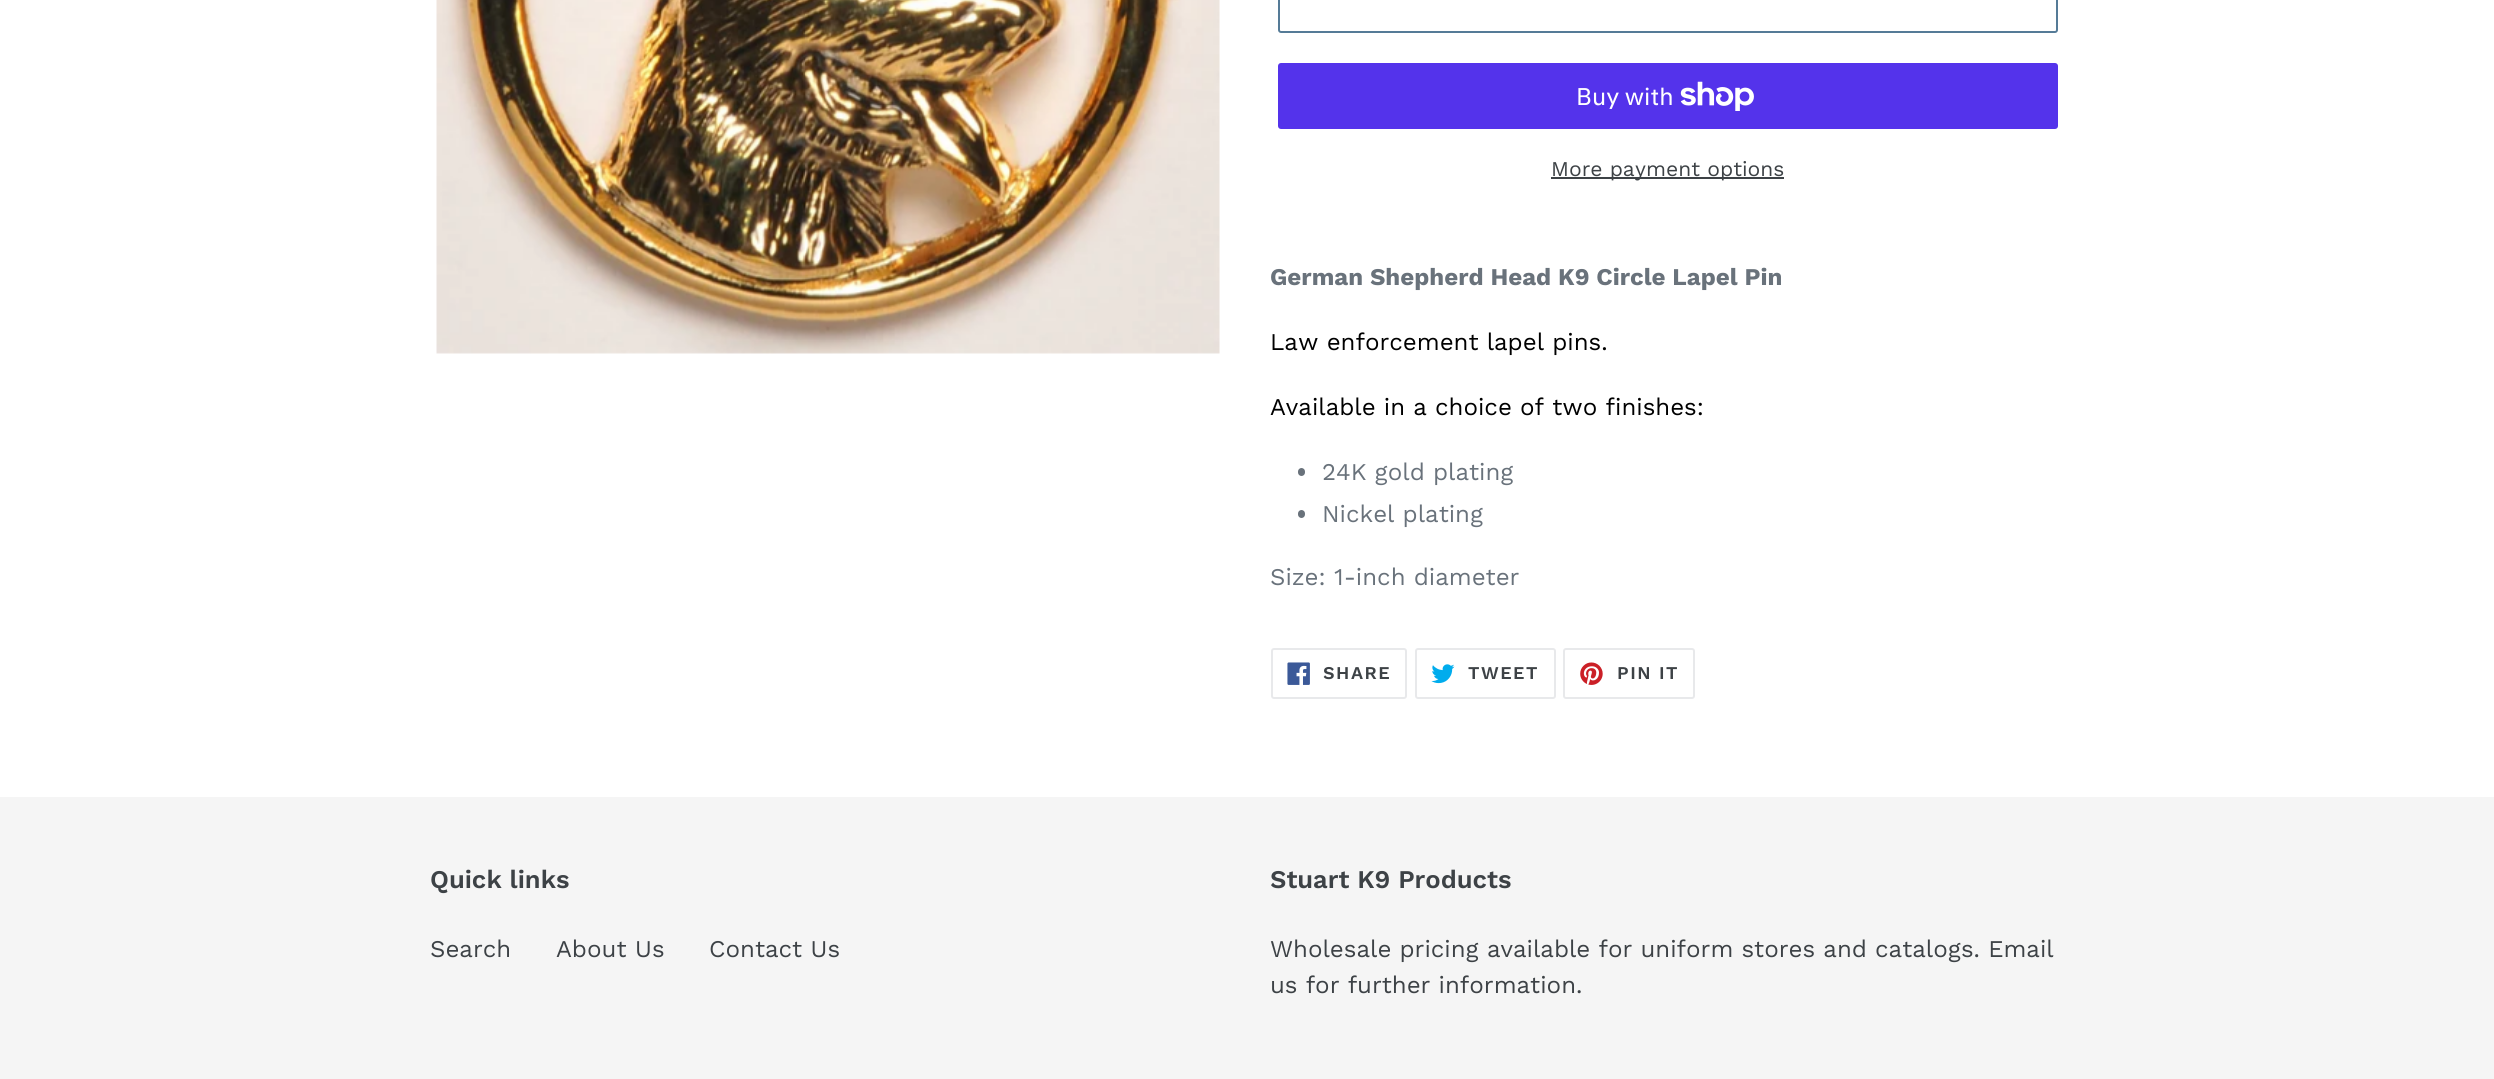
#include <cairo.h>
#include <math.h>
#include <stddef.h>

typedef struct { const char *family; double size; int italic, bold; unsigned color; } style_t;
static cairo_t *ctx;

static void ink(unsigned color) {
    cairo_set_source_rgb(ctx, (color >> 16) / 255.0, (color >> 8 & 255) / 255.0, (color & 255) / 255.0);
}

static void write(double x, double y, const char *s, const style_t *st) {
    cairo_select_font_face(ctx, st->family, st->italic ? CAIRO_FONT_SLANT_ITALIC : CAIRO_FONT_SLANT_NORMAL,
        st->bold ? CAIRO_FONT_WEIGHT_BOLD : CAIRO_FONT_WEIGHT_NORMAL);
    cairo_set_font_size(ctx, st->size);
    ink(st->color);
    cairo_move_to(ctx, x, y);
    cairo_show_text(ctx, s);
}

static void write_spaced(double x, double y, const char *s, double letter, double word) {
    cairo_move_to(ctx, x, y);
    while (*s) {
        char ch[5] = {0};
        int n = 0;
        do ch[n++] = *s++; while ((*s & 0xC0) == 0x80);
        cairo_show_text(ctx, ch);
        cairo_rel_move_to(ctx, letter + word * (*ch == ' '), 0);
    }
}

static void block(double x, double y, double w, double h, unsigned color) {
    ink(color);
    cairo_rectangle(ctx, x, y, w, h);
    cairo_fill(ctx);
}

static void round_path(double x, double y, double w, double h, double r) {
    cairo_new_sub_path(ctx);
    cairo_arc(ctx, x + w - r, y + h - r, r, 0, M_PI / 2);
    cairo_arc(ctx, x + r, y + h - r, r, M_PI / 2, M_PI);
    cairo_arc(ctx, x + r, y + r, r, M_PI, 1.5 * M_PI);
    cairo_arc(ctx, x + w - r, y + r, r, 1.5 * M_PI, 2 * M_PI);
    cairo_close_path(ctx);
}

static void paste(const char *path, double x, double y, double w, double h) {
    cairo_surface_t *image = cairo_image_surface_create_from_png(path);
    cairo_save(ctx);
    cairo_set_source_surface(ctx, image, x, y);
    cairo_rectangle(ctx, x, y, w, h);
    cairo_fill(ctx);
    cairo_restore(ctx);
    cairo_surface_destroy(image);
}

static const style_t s1 = {"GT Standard", 24, 0, 0, 0xffffff};
static const style_t s2 = {"Work Sans", 21, 0, 0, 0x3d4246};
static const style_t s3 = {"Work Sans", 24, 0, 1, 0x69727b};
static const style_t s4 = {"Work Sans", 24, 0, 0, 0x000000};
static const style_t s5 = {"Work Sans", 24, 0, 0, 0x69727b};
static const style_t s6 = {"Work Sans SemiBold", 25.5, 0, 0, 0x3d4246};
static const style_t s7 = {"Work Sans", 24, 0, 0, 0x3d4246};

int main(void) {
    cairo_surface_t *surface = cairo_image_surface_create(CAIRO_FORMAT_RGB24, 2494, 1079);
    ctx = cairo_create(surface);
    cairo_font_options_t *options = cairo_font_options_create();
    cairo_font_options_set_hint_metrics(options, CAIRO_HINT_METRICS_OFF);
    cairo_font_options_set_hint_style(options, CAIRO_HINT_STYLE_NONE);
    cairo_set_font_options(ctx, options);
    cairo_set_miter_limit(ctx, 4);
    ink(0xffffff);
    cairo_paint(ctx);
    paste("pic1.png", 436, 0, 784, 354);
    round_path(1279, -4, 778, 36, 2);
    ink(0x557b97);
    cairo_stroke(ctx);
    ink(0x5433eb);
    round_path(1278, 63, 780, 66, 3);
    cairo_fill(ctx);
    write(1576, 105, "Buy with", &s1);
    paste("pic2.png", 1680, 81, 74, 30);
    block(1551, 177, 233, 2, 0x3d4246);
    write(1551, 176, "More payment options", &s2);
    write(1270, 285, "German Shepherd Head K9 Circle Lapel Pin", &s3);
    write(1270, 350, "Law enforcement lapel pins.", &s4);
    write(1270, 415, "Available in a choice of two finishes:", &s4);
    ink(0x69727b);
    round_path(1298, 468, 7, 8, 3.5);
    cairo_fill(ctx);
    write(1322, 480, "24K gold plating", &s5);
    round_path(1298, 510, 7, 8, 3.5);
    cairo_fill(ctx);
    write(1322, 522, "Nickel plating", &s5);
    write(1270, 585, "Size: 1-inch diameter", &s5);
    round_path(1272, 649, 134, 49, 2);
    ink(0xe8e9eb);
    cairo_stroke(ctx);
    paste("pic3.png", 1287, 662, 23, 23);
    cairo_select_font_face(ctx, "Work Sans SemiBold", CAIRO_FONT_SLANT_NORMAL, CAIRO_FONT_WEIGHT_NORMAL);
    cairo_set_font_size(ctx, 18);
    ink(0x3d4246);
    write_spaced(1323, 679, "SHARE", 1.5, 0);
    round_path(1416, 649, 139, 49, 2);
    ink(0xe8e9eb);
    cairo_stroke(ctx);
    paste("pic4.png", 1431, 664, 24, 20);
    ink(0x3d4246);
    write_spaced(1468, 679, "TWEET", 1.5, 0);
    round_path(1564, 649, 130, 49, 2);
    ink(0xe8e9eb);
    cairo_stroke(ctx);
    paste("pic5.png", 1580, 662, 23, 23);
    ink(0x3d4246);
    write_spaced(1617, 679, "PIN IT", 1.5, 0);
    block(0, 797, 2494, 282, 0xf5f5f5);
    write(430, 888, "Quick links", &s6);
    write(430, 957, "Search", &s7);
    write(556, 957, "About Us", &s7);
    write(709, 957, "Contact Us", &s7);
    write(1270, 888, "Stuart K9 Products", &s6);
    write(1270, 957, "Wholesale pricing available for uniform stores and catalogs. Email", &s7);
    write(1270, 993, "us for further information.", &s7);
    cairo_surface_write_to_png(surface, "screenshot.png");
    cairo_font_options_destroy(options);
    cairo_destroy(ctx);
    cairo_surface_destroy(surface);
    return 0;
}
